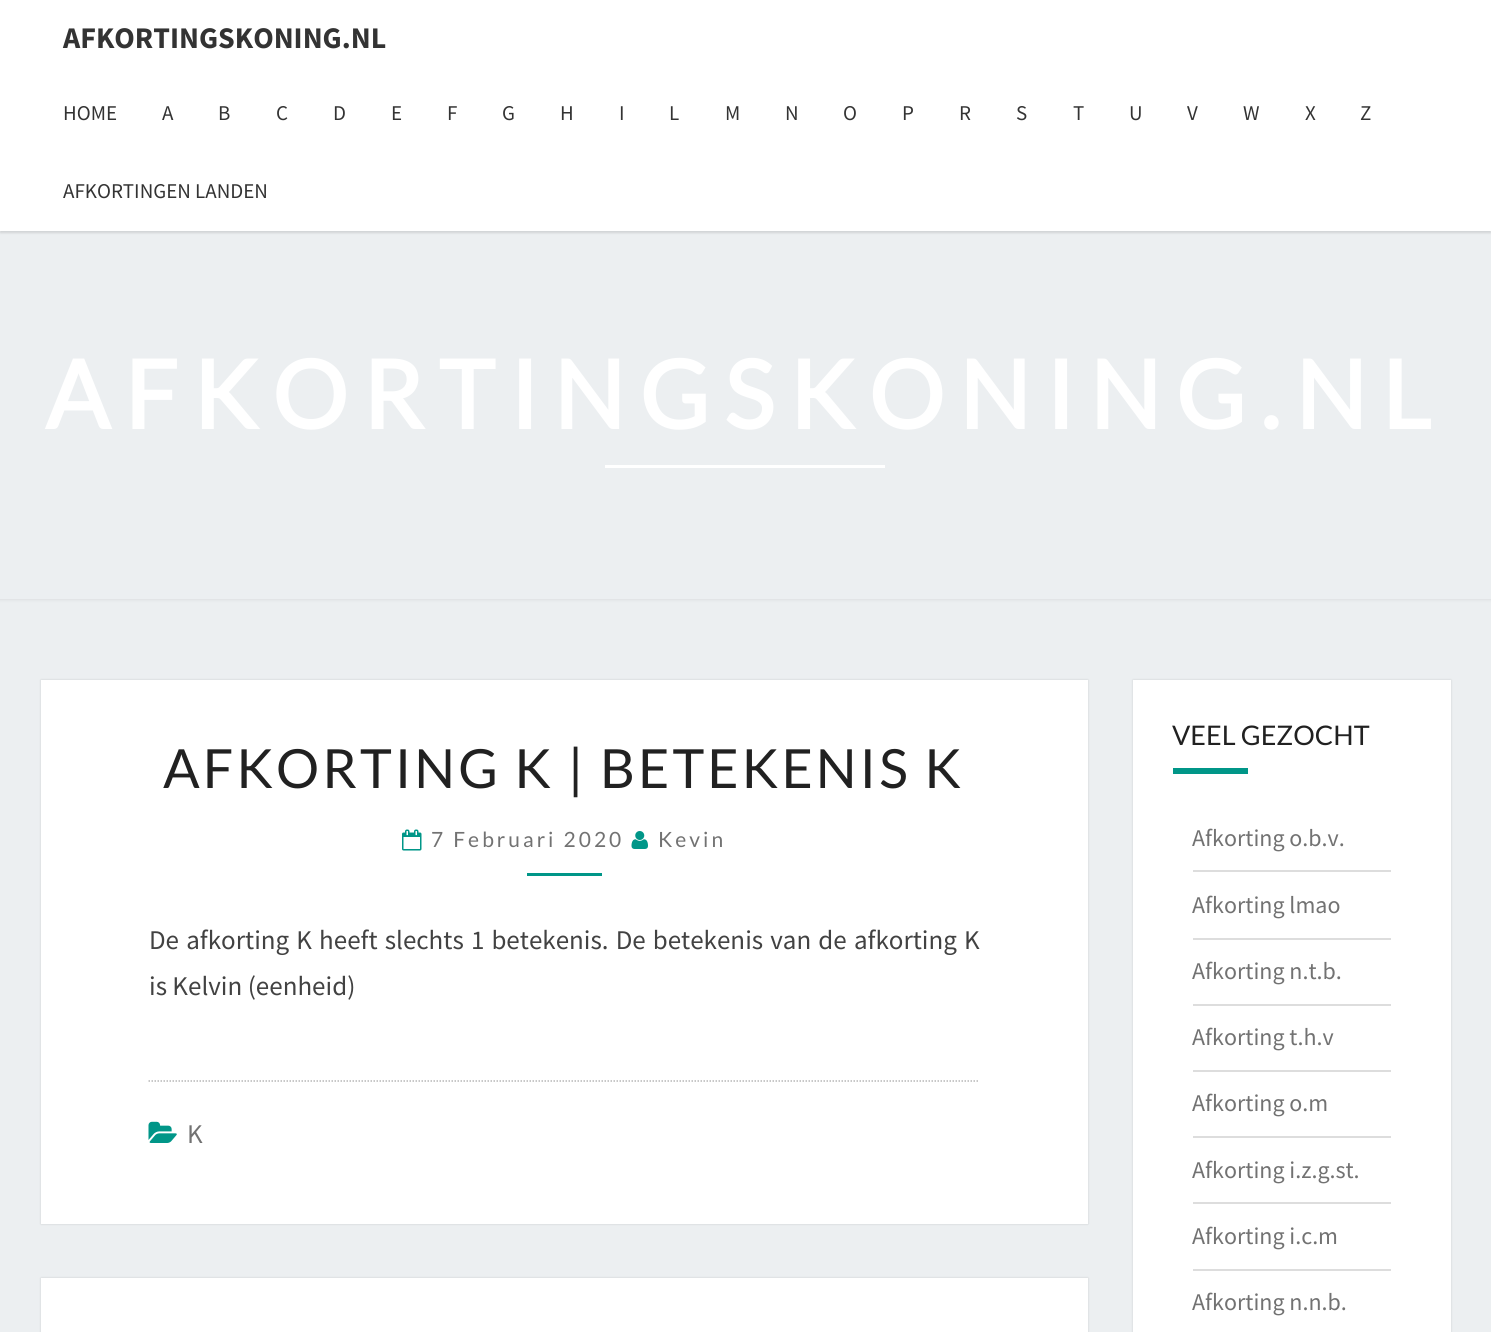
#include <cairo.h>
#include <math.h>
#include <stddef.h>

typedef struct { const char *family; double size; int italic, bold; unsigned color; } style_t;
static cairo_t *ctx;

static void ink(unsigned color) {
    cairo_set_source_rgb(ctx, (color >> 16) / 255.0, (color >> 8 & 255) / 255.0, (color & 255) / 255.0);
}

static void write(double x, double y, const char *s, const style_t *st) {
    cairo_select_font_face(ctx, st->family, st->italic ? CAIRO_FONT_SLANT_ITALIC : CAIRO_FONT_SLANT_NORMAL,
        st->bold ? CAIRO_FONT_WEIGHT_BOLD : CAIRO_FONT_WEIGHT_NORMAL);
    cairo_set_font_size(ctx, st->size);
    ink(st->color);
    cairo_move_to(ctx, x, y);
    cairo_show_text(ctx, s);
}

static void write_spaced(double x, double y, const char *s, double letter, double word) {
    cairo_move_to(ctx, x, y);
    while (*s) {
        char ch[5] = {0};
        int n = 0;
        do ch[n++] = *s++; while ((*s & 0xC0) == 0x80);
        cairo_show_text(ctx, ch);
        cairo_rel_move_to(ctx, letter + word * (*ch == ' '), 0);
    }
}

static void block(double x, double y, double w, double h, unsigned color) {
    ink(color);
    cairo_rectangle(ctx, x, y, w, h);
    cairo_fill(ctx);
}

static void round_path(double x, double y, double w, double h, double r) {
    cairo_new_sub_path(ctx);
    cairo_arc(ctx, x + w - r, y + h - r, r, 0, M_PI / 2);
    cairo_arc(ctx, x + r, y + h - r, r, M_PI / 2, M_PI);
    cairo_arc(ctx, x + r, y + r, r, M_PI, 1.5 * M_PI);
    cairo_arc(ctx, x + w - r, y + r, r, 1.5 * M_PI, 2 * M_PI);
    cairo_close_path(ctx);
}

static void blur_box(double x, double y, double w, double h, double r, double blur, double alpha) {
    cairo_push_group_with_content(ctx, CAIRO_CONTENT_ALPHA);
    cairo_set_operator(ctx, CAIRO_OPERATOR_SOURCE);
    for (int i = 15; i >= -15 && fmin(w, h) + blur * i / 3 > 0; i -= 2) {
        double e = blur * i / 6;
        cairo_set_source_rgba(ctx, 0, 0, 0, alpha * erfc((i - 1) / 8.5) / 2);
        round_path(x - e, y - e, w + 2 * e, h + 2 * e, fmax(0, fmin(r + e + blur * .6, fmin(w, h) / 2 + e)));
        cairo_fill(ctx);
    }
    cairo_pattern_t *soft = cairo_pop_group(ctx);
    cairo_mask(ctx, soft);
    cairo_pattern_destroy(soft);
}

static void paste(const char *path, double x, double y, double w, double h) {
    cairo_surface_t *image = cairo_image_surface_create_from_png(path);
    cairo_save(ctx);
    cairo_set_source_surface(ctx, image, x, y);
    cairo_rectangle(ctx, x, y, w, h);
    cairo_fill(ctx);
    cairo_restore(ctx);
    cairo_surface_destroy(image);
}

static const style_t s1 = {"Source Sans Pro", 30, 0, 1, 0x333333};
static const style_t s2 = {"Source Sans Pro", 21, 0, 0, 0x333333};
static const style_t s3 = {"Source Sans Pro", 27, 0, 0, 0x424242};
static const style_t s4 = {"Source Sans Pro", 27, 0, 0, 0x727272};
static const style_t s5 = {"Lato", 27, 0, 0, 0x212121};
static const style_t s6 = {"Source Sans Pro", 24, 0, 0, 0x727272};

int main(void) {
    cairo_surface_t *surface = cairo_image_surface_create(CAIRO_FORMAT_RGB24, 1491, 1332);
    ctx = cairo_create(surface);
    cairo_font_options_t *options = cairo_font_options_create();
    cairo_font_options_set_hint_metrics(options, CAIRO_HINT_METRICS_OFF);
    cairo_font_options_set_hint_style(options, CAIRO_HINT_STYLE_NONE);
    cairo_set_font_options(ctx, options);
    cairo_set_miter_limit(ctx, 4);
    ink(0xeceff1);
    cairo_paint(ctx);
    ink(0x646464);
    blur_box(0, 2, 1491, 231, 0, 1, 0.2);
    cairo_save(ctx);
    cairo_set_fill_rule(ctx, CAIRO_FILL_RULE_EVEN_ODD);
    cairo_new_path(ctx);
    cairo_move_to(ctx, 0, 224);
    cairo_line_to(ctx, 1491, 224);
    cairo_line_to(ctx, 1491, 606);
    cairo_line_to(ctx, 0, 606);
    cairo_close_path(ctx);
    cairo_move_to(ctx, 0, 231);
    cairo_line_to(ctx, 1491, 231);
    cairo_line_to(ctx, 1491, 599);
    cairo_line_to(ctx, 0, 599);
    cairo_close_path(ctx);
    cairo_clip(ctx);
    ink(0xb6b6b6);
    blur_box(-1, 230, 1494, 370, 0, 1.5, 0.3);
    cairo_restore(ctx);
    block(0, 0, 1491, 231, 0xffffff);
    write(63, 48, "AFKORTINGSKONING.NL", &s1);
    write(63, 120, "HOME", &s2);
    write(162, 120, "A", &s2);
    write(218, 120, "B", &s2);
    write(276, 120, "C", &s2);
    write(333, 120, "D", &s2);
    write(391, 120, "E", &s2);
    write(447, 120, "F", &s2);
    write(502, 120, "G", &s2);
    write(560, 120, "H", &s2);
    write(619, 120, "I", &s2);
    write(669, 120, "L", &s2);
    write(725, 120, "M", &s2);
    write(785, 120, "N", &s2);
    write(843, 120, "O", &s2);
    write(902, 120, "P", &s2);
    write(959, 120, "R", &s2);
    write(1016, 120, "S", &s2);
    write(1073, 120, "T", &s2);
    write(1129, 120, "U", &s2);
    write(1187, 120, "V", &s2);
    write(1243, 120, "W", &s2);
    write(1305, 120, "X", &s2);
    write(1360, 120, "Z", &s2);
    write(63, 198, "AFKORTINGEN LANDEN", &s2);
    cairo_select_font_face(ctx, "Lato", CAIRO_FONT_SLANT_NORMAL, CAIRO_FONT_WEIGHT_BOLD);
    cairo_set_font_size(ctx, 94.5);
    ink(0xffffff);
    write_spaced(45, 429, "AFKORTINGSKONING.NL", 15, 0);
    block(605, 465, 280, 3, 0xffffff);
    ink(0x000000);
    blur_box(41, 680, 1047, 544, 0, 1, 0.15);
    block(41, 680, 1047, 544, 0xffffff);
    cairo_select_font_face(ctx, "Lato", CAIRO_FONT_SLANT_NORMAL, CAIRO_FONT_WEIGHT_NORMAL);
    cairo_set_font_size(ctx, 54);
    ink(0x212121);
    write_spaced(163, 788, "AFKORTING K | BETEKENIS K", 3, 0);
    paste("pic1.png", 402, 829, 20, 22);
    cairo_set_font_size(ctx, 21);
    ink(0x727272);
    write_spaced(431, 847, "7 Februari 2020", 3, 0);
    paste("pic2.png", 631, 831, 17, 18);
    write_spaced(658, 847, "Kevin", 3, 0);
    block(527, 873, 75, 3, 0x009688);
    cairo_select_font_face(ctx, "Source Sans Pro", CAIRO_FONT_SLANT_NORMAL, CAIRO_FONT_WEIGHT_NORMAL);
    cairo_set_font_size(ctx, 27);
    ink(0x424242);
    write_spaced(149, 949, "De afkorting K heeft slechts 1 betekenis. De betekenis van de afkorting K", 0, 1.75);
    write(149, 995, "is Kelvin (eenheid)", &s3);
    cairo_new_path(ctx);
    cairo_move_to(ctx, 148.5, 1081);
    cairo_line_to(ctx, 979.5, 1081);
    ink(0xb6b6b6);
    cairo_set_line_width(ctx, 1.5);
    cairo_set_dash(ctx, (double[]){1.5, 1.5}, 2, 0);
    cairo_stroke(ctx);
    paste("pic3.png", 148, 1121, 29, 22);
    write(187, 1143, "K", &s4);
    ink(0x000000);
    blur_box(41, 1278, 1047, 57, 0, 1, 0.15);
    block(41, 1278, 1047, 54, 0xffffff);
    ink(0x000000);
    blur_box(1133, 680, 318, 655, 0, 1, 0.15);
    block(1133, 680, 318, 652, 0xffffff);
    write(1172, 745, "VEEL GEZOCHT", &s5);
    block(1173, 768, 75, 6, 0x009688);
    block(1193, 870, 198, 2, 0xdddddd);
    write(1192, 846, "Afkorting o.b.v.", &s6);
    block(1193, 938, 198, 2, 0xdddddd);
    write(1192, 913, "Afkorting lmao", &s6);
    block(1193, 1004, 198, 2, 0xdddddd);
    write(1192, 979, "Afkorting n.t.b.", &s6);
    block(1193, 1070, 198, 2, 0xdddddd);
    write(1192, 1045, "Afkorting t.h.v", &s6);
    block(1193, 1136, 198, 2, 0xdddddd);
    write(1192, 1111, "Afkorting o.m", &s6);
    block(1193, 1202, 198, 2, 0xdddddd);
    write(1192, 1178, "Afkorting i.z.g.st.", &s6);
    block(1193, 1269, 198, 2, 0xdddddd);
    write(1192, 1244, "Afkorting i.c.m", &s6);
    write(1192, 1310, "Afkorting n.n.b.", &s6);
    cairo_surface_write_to_png(surface, "screenshot.png");
    cairo_font_options_destroy(options);
    cairo_destroy(ctx);
    cairo_surface_destroy(surface);
    return 0;
}
